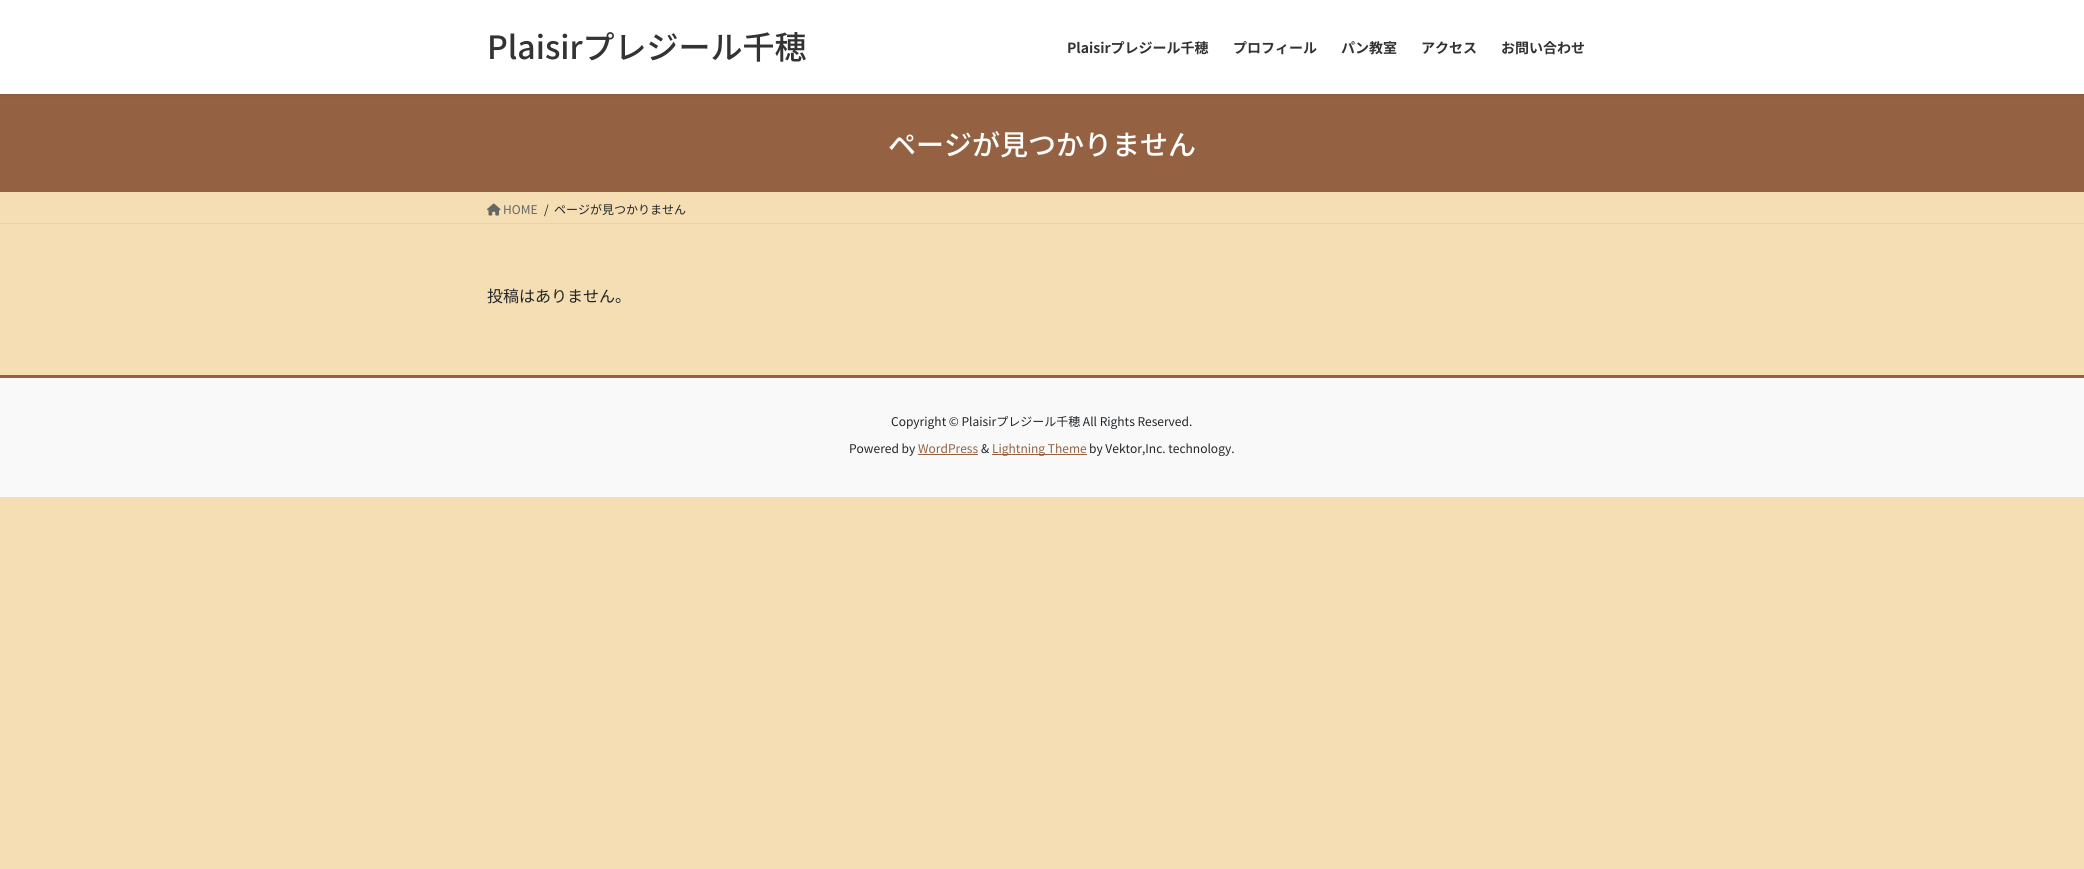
#include <cairo.h>
#include <math.h>
#include <stddef.h>

typedef struct { const char *family; double size; int italic, bold; unsigned color; } style_t;
static cairo_t *ctx;

static void ink(unsigned color) {
    cairo_set_source_rgb(ctx, (color >> 16) / 255.0, (color >> 8 & 255) / 255.0, (color & 255) / 255.0);
}

static void write(double x, double y, const char *s, const style_t *st) {
    cairo_select_font_face(ctx, st->family, st->italic ? CAIRO_FONT_SLANT_ITALIC : CAIRO_FONT_SLANT_NORMAL,
        st->bold ? CAIRO_FONT_WEIGHT_BOLD : CAIRO_FONT_WEIGHT_NORMAL);
    cairo_set_font_size(ctx, st->size);
    ink(st->color);
    cairo_move_to(ctx, x, y);
    cairo_show_text(ctx, s);
}

static void block(double x, double y, double w, double h, unsigned color) {
    ink(color);
    cairo_rectangle(ctx, x, y, w, h);
    cairo_fill(ctx);
}

static void round_path(double x, double y, double w, double h, double r) {
    cairo_new_sub_path(ctx);
    cairo_arc(ctx, x + w - r, y + h - r, r, 0, M_PI / 2);
    cairo_arc(ctx, x + r, y + h - r, r, M_PI / 2, M_PI);
    cairo_arc(ctx, x + r, y + r, r, M_PI, 1.5 * M_PI);
    cairo_arc(ctx, x + w - r, y + r, r, 1.5 * M_PI, 2 * M_PI);
    cairo_close_path(ctx);
}

static void blur_box(double x, double y, double w, double h, double r, double blur, double alpha) {
    cairo_push_group_with_content(ctx, CAIRO_CONTENT_ALPHA);
    cairo_set_operator(ctx, CAIRO_OPERATOR_SOURCE);
    for (int i = 15; i >= -15 && fmin(w, h) + blur * i / 3 > 0; i -= 2) {
        double e = blur * i / 6;
        cairo_set_source_rgba(ctx, 0, 0, 0, alpha * erfc((i - 1) / 8.5) / 2);
        round_path(x - e, y - e, w + 2 * e, h + 2 * e, fmax(0, fmin(r + e + blur * .6, fmin(w, h) / 2 + e)));
        cairo_fill(ctx);
    }
    cairo_pattern_t *soft = cairo_pop_group(ctx);
    cairo_mask(ctx, soft);
    cairo_pattern_destroy(soft);
}

static void paste(const char *path, double x, double y, double w, double h) {
    cairo_surface_t *image = cairo_image_surface_create_from_png(path);
    cairo_save(ctx);
    cairo_set_source_surface(ctx, image, x, y);
    cairo_rectangle(ctx, x, y, w, h);
    cairo_fill(ctx);
    cairo_restore(ctx);
    cairo_surface_destroy(image);
}

static const style_t s1 = {"Noto Sans JP Medium", 32, 0, 0, 0x333333};
static const style_t s2 = {"Noto Sans JP", 14, 0, 1, 0x333333};
static const style_t s3 = {"Noto Sans JP Medium", 28, 0, 0, 0xffffff};
static const style_t s4 = {"Noto Sans JP", 12, 0, 0, 0x666666};
static const style_t s5 = {"Noto Sans JP", 12, 0, 0, 0x212529};
static const style_t s6 = {"Noto Sans JP", 16, 0, 0, 0x212529};
static const style_t s7 = {"Noto Sans JP", 12, 0, 0, 0x946243};

int main(void) {
    cairo_surface_t *surface = cairo_image_surface_create(CAIRO_FORMAT_RGB24, 2084, 869);
    ctx = cairo_create(surface);
    cairo_font_options_t *options = cairo_font_options_create();
    cairo_font_options_set_hint_metrics(options, CAIRO_HINT_METRICS_OFF);
    cairo_font_options_set_hint_style(options, CAIRO_HINT_STYLE_NONE);
    cairo_set_font_options(ctx, options);
    cairo_set_miter_limit(ctx, 4);
    ink(0xf5deb3);
    cairo_paint(ctx);
    block(0, 94, 2084, 98, 0x946243);
    ink(0x000000);
    blur_box(0, 1, 2084, 94, 0, 1.5, 0.1);
    block(0, 0, 2084, 94, 0xffffff);
    write(487, 59, "Plaisirプレジール千穂", &s1);
    write(1067, 53, "Plaisirプレジール千穂", &s2);
    write(1233, 53, "プロフィール", &s2);
    write(1341, 53, "パン教室", &s2);
    write(1421, 53, "アクセス", &s2);
    write(1501, 53, "お問い合わせ", &s2);
    write(888, 155, "ページが見つかりません", &s3);
    block(0, 223, 2084, 1, 0xe9d3aa);
    paste("pic1.png", 487, 203, 14, 13);
    write(503, 214, "HOME", &s4);
    write(544, 214, "/", &s5);
    write(554, 214, "ページが見つかりません", &s5);
    write(487, 302, "投稿はありません。", &s6);
    block(0, 378, 2084, 119, 0xf9f9f9);
    block(0, 375, 2084, 3, 0x946243);
    write(891, 426, "Copyright © Plaisirプレジール千穂 All Rights Reserved.", &s5);
    write(849, 453, "Powered by", &s5);
    write(918, 453, "WordPress", &s7);
    block(918, 454, 60, 1, 0x946243);
    write(981, 453, "&", &s5);
    block(992, 454, 95, 1, 0x946243);
    write(992, 453, "Lightning Theme", &s7);
    write(1089, 453, "by Vektor,Inc. technology.", &s5);
    cairo_surface_write_to_png(surface, "screenshot.png");
    cairo_font_options_destroy(options);
    cairo_destroy(ctx);
    cairo_surface_destroy(surface);
    return 0;
}
